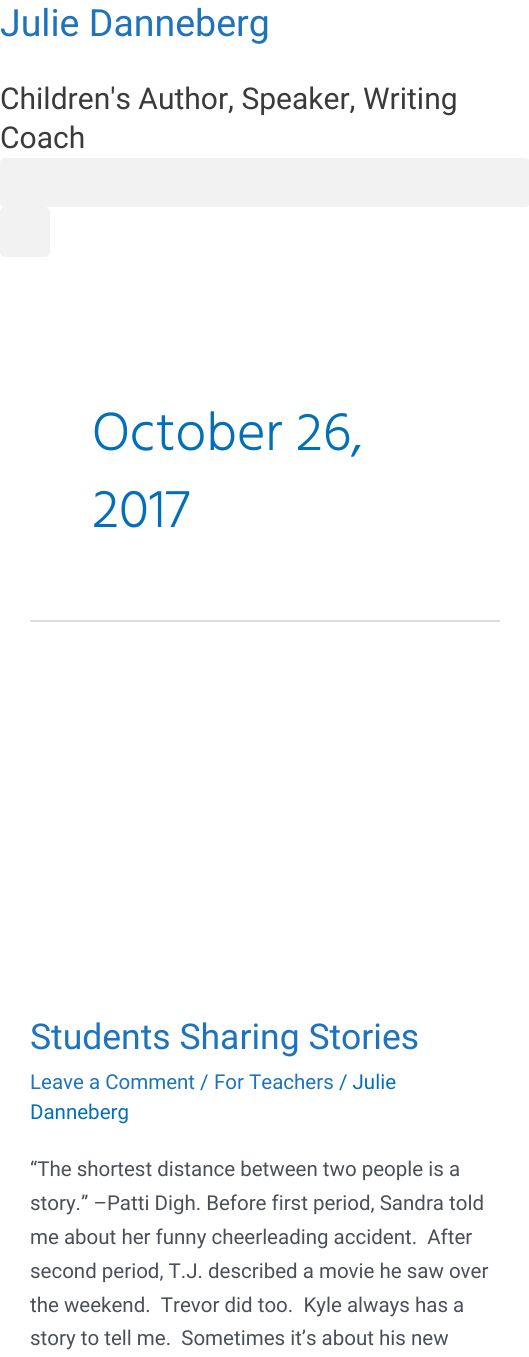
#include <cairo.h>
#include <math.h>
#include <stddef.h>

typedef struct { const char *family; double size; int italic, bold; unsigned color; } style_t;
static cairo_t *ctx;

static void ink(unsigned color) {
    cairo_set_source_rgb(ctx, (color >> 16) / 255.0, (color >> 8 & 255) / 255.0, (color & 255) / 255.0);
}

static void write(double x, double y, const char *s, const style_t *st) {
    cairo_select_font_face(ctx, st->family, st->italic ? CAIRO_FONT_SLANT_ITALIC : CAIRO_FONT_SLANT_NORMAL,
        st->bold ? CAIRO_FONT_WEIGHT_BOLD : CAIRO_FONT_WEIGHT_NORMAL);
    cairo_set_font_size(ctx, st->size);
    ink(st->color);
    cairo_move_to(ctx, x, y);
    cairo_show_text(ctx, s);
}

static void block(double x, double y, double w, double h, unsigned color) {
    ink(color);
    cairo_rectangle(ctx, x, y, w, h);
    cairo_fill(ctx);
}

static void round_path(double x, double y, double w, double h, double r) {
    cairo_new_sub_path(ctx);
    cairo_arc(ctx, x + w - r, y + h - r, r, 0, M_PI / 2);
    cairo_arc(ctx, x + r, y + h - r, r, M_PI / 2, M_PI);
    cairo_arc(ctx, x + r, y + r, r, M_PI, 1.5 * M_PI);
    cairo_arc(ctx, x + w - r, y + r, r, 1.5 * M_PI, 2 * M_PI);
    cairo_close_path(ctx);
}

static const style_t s1 = {"Roboto", 37.5, 0, 0, 0x1e73be};
static const style_t s2 = {"Roboto", 30, 0, 0, 0x3a3a3a};
static const style_t s3 = {"Hind Light", 54.75, 0, 0, 0x0170b9};
static const style_t s4 = {"Roboto", 35.5, 0, 0, 0x1e73be};
static const style_t s5 = {"Roboto", 20.5, 0, 0, 0x1e73be};
static const style_t s6 = {"Roboto", 20.5, 0, 0, 0x0170b9};
static const style_t s7 = {"Roboto", 20.5, 0, 0, 0x4b4f58};

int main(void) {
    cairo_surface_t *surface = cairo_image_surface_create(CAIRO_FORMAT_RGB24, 529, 1357);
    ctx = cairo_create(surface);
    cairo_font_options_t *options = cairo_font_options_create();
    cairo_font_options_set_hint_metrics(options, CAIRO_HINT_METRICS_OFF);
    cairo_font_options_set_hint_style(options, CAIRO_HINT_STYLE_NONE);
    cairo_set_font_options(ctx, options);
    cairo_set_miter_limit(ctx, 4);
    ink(0xffffff);
    cairo_paint(ctx);
    write(0, 36, "Julie Danneberg", &s1);
    write(0, 109, "Children's Author, Speaker, Writing", &s2);
    write(0, 148, "Coach", &s2);
    ink(0xf2f2f2);
    round_path(0, 158, 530, 49, 5);
    cairo_fill(ctx);
    round_path(0, 207, 50, 50, 5);
    cairo_fill(ctx);
    block(30, 620, 470, 2, 0xdddddd);
    write(92, 450, "October 26,", &s3);
    write(92, 527, "2017", &s3);
    write(30, 1049, "Students Sharing Stories", &s4);
    write(30, 1089, "Leave a Comment", &s5);
    write(200, 1089, "/", &s6);
    write(214, 1089, "For Teachers", &s5);
    write(339, 1089, "/ Julie", &s6);
    write(30, 1119, "Danneberg", &s6);
    write(30, 1176, "“The shortest distance between two people is a", &s7);
    write(30, 1210, "story.” –Patti Digh. Before first period, Sandra told", &s7);
    write(30, 1244, "me about her funny cheerleading accident.  After", &s7);
    write(30, 1278, "second period, T.J. described a movie he saw over", &s7);
    write(30, 1312, "the weekend.  Trevor did too.  Kyle always has a", &s7);
    write(30, 1345, "story to tell me.  Sometimes it’s about his new", &s7);
    cairo_surface_write_to_png(surface, "screenshot.png");
    cairo_font_options_destroy(options);
    cairo_destroy(ctx);
    cairo_surface_destroy(surface);
    return 0;
}
